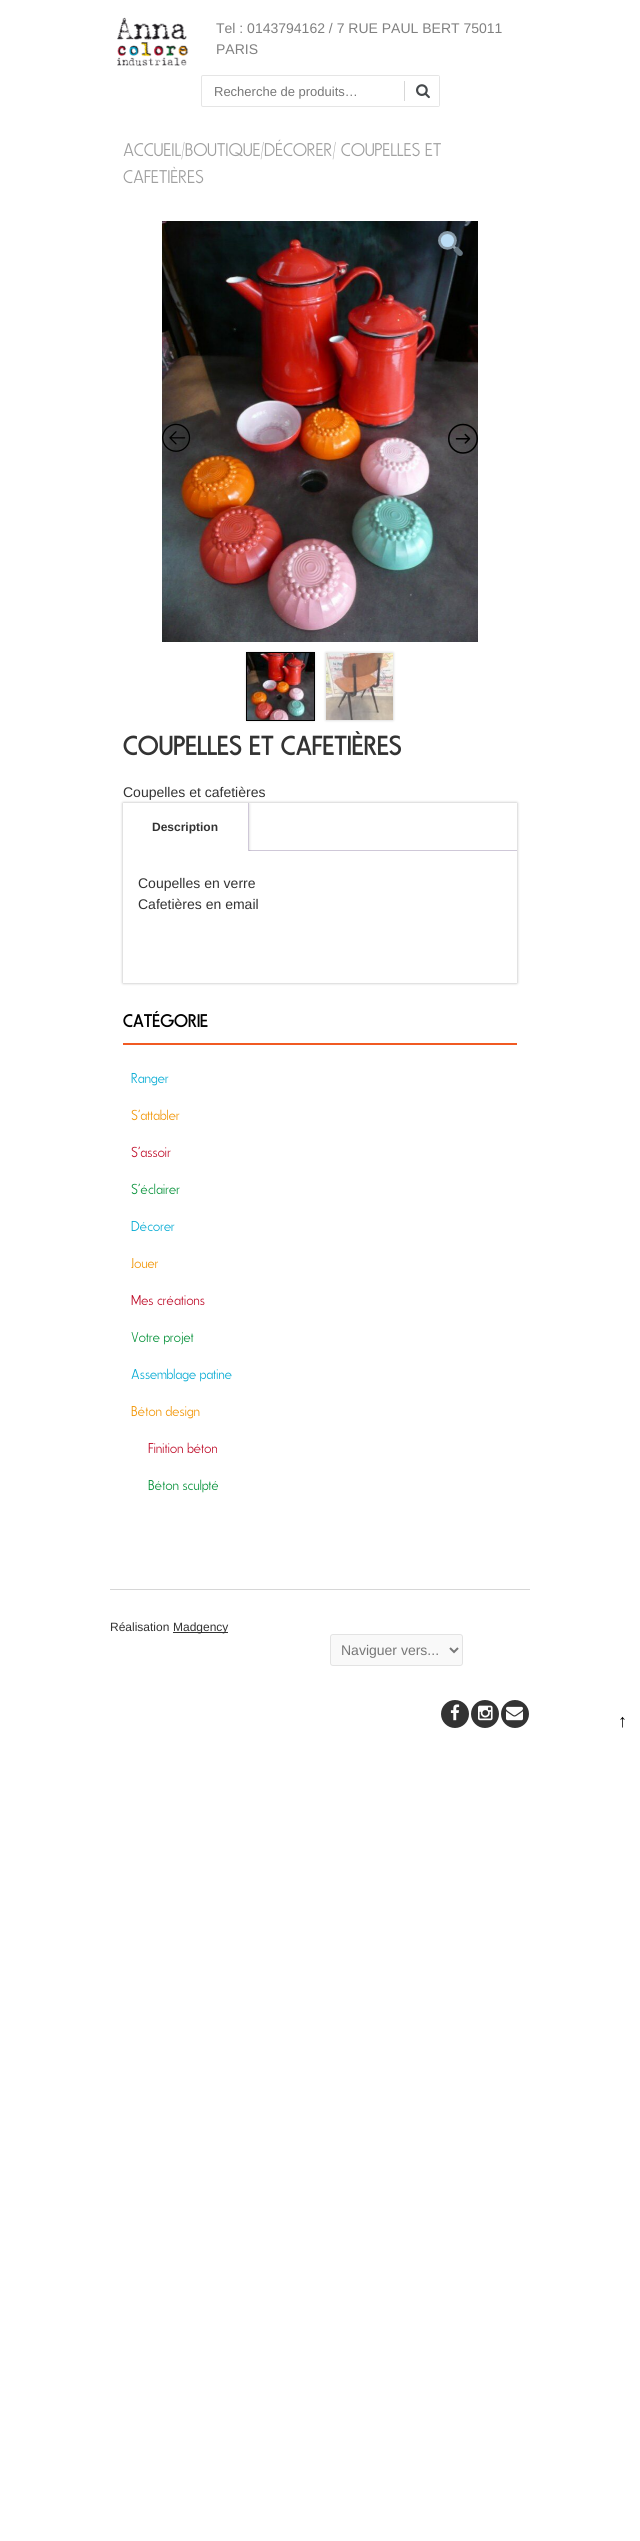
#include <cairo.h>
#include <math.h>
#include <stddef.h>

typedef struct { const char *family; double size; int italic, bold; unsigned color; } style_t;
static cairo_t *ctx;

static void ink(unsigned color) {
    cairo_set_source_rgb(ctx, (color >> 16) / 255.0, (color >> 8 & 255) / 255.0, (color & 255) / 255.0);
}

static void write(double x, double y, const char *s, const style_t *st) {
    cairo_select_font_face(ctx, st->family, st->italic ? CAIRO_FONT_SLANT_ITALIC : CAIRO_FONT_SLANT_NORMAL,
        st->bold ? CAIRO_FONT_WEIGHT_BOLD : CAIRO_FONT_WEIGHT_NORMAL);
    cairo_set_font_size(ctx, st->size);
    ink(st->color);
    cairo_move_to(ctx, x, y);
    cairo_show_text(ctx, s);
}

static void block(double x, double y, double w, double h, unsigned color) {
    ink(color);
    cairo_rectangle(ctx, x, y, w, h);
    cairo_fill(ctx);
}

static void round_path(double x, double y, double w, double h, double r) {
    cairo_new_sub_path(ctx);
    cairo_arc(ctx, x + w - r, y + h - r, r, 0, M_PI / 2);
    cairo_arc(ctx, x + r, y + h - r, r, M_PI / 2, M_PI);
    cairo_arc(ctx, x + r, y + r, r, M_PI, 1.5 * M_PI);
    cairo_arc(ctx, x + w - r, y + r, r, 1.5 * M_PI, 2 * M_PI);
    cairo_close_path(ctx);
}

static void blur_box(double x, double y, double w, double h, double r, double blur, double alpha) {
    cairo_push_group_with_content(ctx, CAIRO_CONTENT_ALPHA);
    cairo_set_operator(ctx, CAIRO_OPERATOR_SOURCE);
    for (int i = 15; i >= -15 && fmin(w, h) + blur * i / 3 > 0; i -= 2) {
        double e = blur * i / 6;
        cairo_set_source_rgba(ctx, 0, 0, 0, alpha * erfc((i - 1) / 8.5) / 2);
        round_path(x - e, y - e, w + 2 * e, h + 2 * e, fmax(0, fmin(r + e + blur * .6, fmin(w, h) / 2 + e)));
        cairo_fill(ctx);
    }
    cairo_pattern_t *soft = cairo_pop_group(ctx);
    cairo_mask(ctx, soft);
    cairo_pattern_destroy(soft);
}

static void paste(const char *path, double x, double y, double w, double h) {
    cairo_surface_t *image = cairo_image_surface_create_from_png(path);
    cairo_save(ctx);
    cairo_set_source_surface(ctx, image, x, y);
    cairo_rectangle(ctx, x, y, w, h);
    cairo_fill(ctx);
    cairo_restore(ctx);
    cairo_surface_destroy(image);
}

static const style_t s1 = {"Liberation Sans", 14, 0, 0, 0x808080};
static const style_t s2 = {"Liberation Sans", 13, 0, 0, 0x777777};
static const style_t s3 = {"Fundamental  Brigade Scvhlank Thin", 18, 0, 0, 0x9e9e9e};
static const style_t s4 = {"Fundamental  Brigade", 27, 0, 0, 0x333333};
static const style_t s5 = {"Liberation Sans", 14, 0, 0, 0x333333};
static const style_t s6 = {"Liberation Sans", 12, 0, 1, 0x333333};
static const style_t s7 = {"Fundamental  Brigade", 18, 0, 0, 0x000000};
static const style_t s8 = {"Fundamental  Brigade Scvhlank Thin", 14, 0, 0, 0x00a9d2};
static const style_t s9 = {"Fundamental  Brigade Scvhlank Thin", 14, 0, 0, 0xf19300};
static const style_t s10 = {"Fundamental  Brigade Scvhlank Thin", 14, 0, 0, 0xbd0825};
static const style_t s11 = {"Fundamental  Brigade Scvhlank Thin", 14, 0, 0, 0x008f35};
static const style_t s12 = {"Liberation Sans", 12, 0, 0, 0x333333};
static const style_t s13 = {"Liberation Sans", 14, 0, 0, 0x777777};
static const style_t s14 = {"Liberation Sans", 18, 0, 0, 0x000000};

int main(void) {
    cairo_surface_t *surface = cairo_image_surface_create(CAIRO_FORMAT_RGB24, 640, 2541);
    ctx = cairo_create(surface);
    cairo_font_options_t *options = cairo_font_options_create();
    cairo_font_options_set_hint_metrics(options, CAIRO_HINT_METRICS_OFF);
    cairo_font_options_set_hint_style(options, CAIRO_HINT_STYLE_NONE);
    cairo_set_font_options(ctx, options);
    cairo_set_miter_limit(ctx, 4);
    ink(0xffffff);
    cairo_paint(ctx);
    paste("pic1.png", 117, 17, 72, 49);
    write(216, 33, "Tel : 0143794162 / 7 RUE PAUL BERT 75011", &s1);
    write(216, 54, "PARIS", &s1);
    round_path(201.5, 75.5, 238, 31, 1.5);
    ink(0xe5e5e5);
    cairo_set_line_width(ctx, 1);
    cairo_stroke(ctx);
    write(214, 96, "Recherche de produits…", &s2);
    block(404, 81, 1, 20, 0xd7d7d7);
    paste("pic2.png", 416, 84, 14, 15);
    block(438, 76, 1, 30, 0xffffff);
    write(123, 156, "ACCUEIL/BOUTIQUE/DÉCORER/ COUPELLES ET", &s3);
    write(123, 183, "CAFETIÈRES", &s3);
    paste("pic3.png", 162, 221, 316, 421);
    paste("pic4.png", 438, 231, 25, 25);
    paste("pic5.png", 162, 423, 29, 29);
    paste("pic6.png", 448, 423, 30, 31);
    cairo_rectangle(ctx, 246.5, 652.5, 68, 68);
    ink(0x000000);
    cairo_stroke(ctx);
    ink(0x000000);
    blur_box(247, 653, 67, 67, 0, 1.5, 0.3);
    paste("pic7.png", 247, 653, 67, 67);
    cairo_save(ctx);
    cairo_set_fill_rule(ctx, CAIRO_FILL_RULE_EVEN_ODD);
    cairo_new_path(ctx);
    cairo_move_to(ctx, 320, 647);
    cairo_line_to(ctx, 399, 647);
    cairo_line_to(ctx, 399, 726);
    cairo_line_to(ctx, 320, 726);
    cairo_close_path(ctx);
    cairo_move_to(ctx, 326, 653);
    cairo_line_to(ctx, 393, 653);
    cairo_line_to(ctx, 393, 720);
    cairo_line_to(ctx, 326, 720);
    cairo_close_path(ctx);
    cairo_clip(ctx);
    ink(0x4d4d4d);
    blur_box(326, 653, 67, 67, 0, 1.5, 0.3);
    cairo_restore(ctx);
    paste("pic8.png", 326, 653, 67, 67);
    write(123, 755, "COUPELLES ET CAFETIÈRES", &s4);
    write(123, 797, "Coupelles et cafetières", &s5);
    cairo_save(ctx);
    cairo_set_fill_rule(ctx, CAIRO_FILL_RULE_EVEN_ODD);
    cairo_new_path(ctx);
    cairo_move_to(ctx, 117, 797);
    cairo_line_to(ctx, 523, 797);
    cairo_line_to(ctx, 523, 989);
    cairo_line_to(ctx, 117, 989);
    cairo_close_path(ctx);
    cairo_move_to(ctx, 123, 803);
    cairo_line_to(ctx, 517, 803);
    cairo_line_to(ctx, 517, 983);
    cairo_line_to(ctx, 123, 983);
    cairo_close_path(ctx);
    cairo_clip(ctx);
    ink(0x000000);
    blur_box(123, 803, 394, 180, 0, 1.5, 0.3);
    cairo_restore(ctx);
    block(249, 850, 268, 1, 0xcfc8d8);
    cairo_save(ctx);
    cairo_rectangle(ctx, 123, 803, 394, 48);
    cairo_clip(ctx);
    ink(0x000000);
    blur_box(121, 804, 128, 52, 0, 1.5, 0.2);
    cairo_restore(ctx);
    block(123, 803, 125, 48, 0xffffff);
    block(248, 803, 1, 48, 0xcfc8d8);
    write(152, 831, "Description", &s6);
    write(138, 888, "Coupelles en verre", &s5);
    write(138, 909, "Cafetières en email", &s5);
    block(123, 1043, 394, 2, 0xf15a23);
    write(123, 1027, "CATÉGORIE", &s7);
    write(131, 1083, "Ranger", &s8);
    write(131, 1120, "S'attabler", &s9);
    write(131, 1157, "S'assoir", &s10);
    write(131, 1194, "S'éclairer", &s11);
    write(131, 1231, "Décorer", &s8);
    write(131, 1268, "Jouer", &s9);
    write(131, 1305, "Mes créations", &s10);
    write(131, 1342, "Votre projet", &s11);
    write(131, 1379, "Assemblage patine", &s8);
    write(131, 1416, "Béton design", &s9);
    write(148, 1453, "Finition béton", &s10);
    write(148, 1490, "Béton sculpté", &s11);
    block(110, 1589, 420, 1, 0xd6d6d6);
    write(110, 1631, "Réalisation", &s12);
    block(173, 1632, 55, 1, 0x333333);
    write(173, 1631, "Madgency", &s12);
    ink(0xf9f9f9);
    round_path(330.5, 1634.5, 132, 31, 2.5);
    cairo_fill_preserve(ctx);
    ink(0xe3e3e3);
    cairo_stroke(ctx);
    cairo_new_path(ctx);
    cairo_move_to(ctx, 450, 1648);
    cairo_line_to(ctx, 454, 1652);
    cairo_line_to(ctx, 458, 1648);
    ink(0x777777);
    cairo_set_line_width(ctx, 2);
    cairo_stroke(ctx);
    write(341, 1655, "Naviguer vers...", &s13);
    ink(0x333333);
    cairo_new_path(ctx);
    cairo_arc(ctx, 455, 1714, 14, 0, 2 * M_PI);
    cairo_fill(ctx);
    paste("pic9.png", 450, 1704, 10, 17);
    cairo_arc(ctx, 485, 1714, 14, 0, 2 * M_PI);
    cairo_fill(ctx);
    paste("pic10.png", 478, 1705, 15, 16);
    cairo_arc(ctx, 515, 1714, 14, 0, 2 * M_PI);
    cairo_fill(ctx);
    paste("pic11.png", 506, 1706, 17, 15);
    write(618, 1727, "↑", &s14);
    cairo_surface_write_to_png(surface, "screenshot.png");
    cairo_font_options_destroy(options);
    cairo_destroy(ctx);
    cairo_surface_destroy(surface);
    return 0;
}
